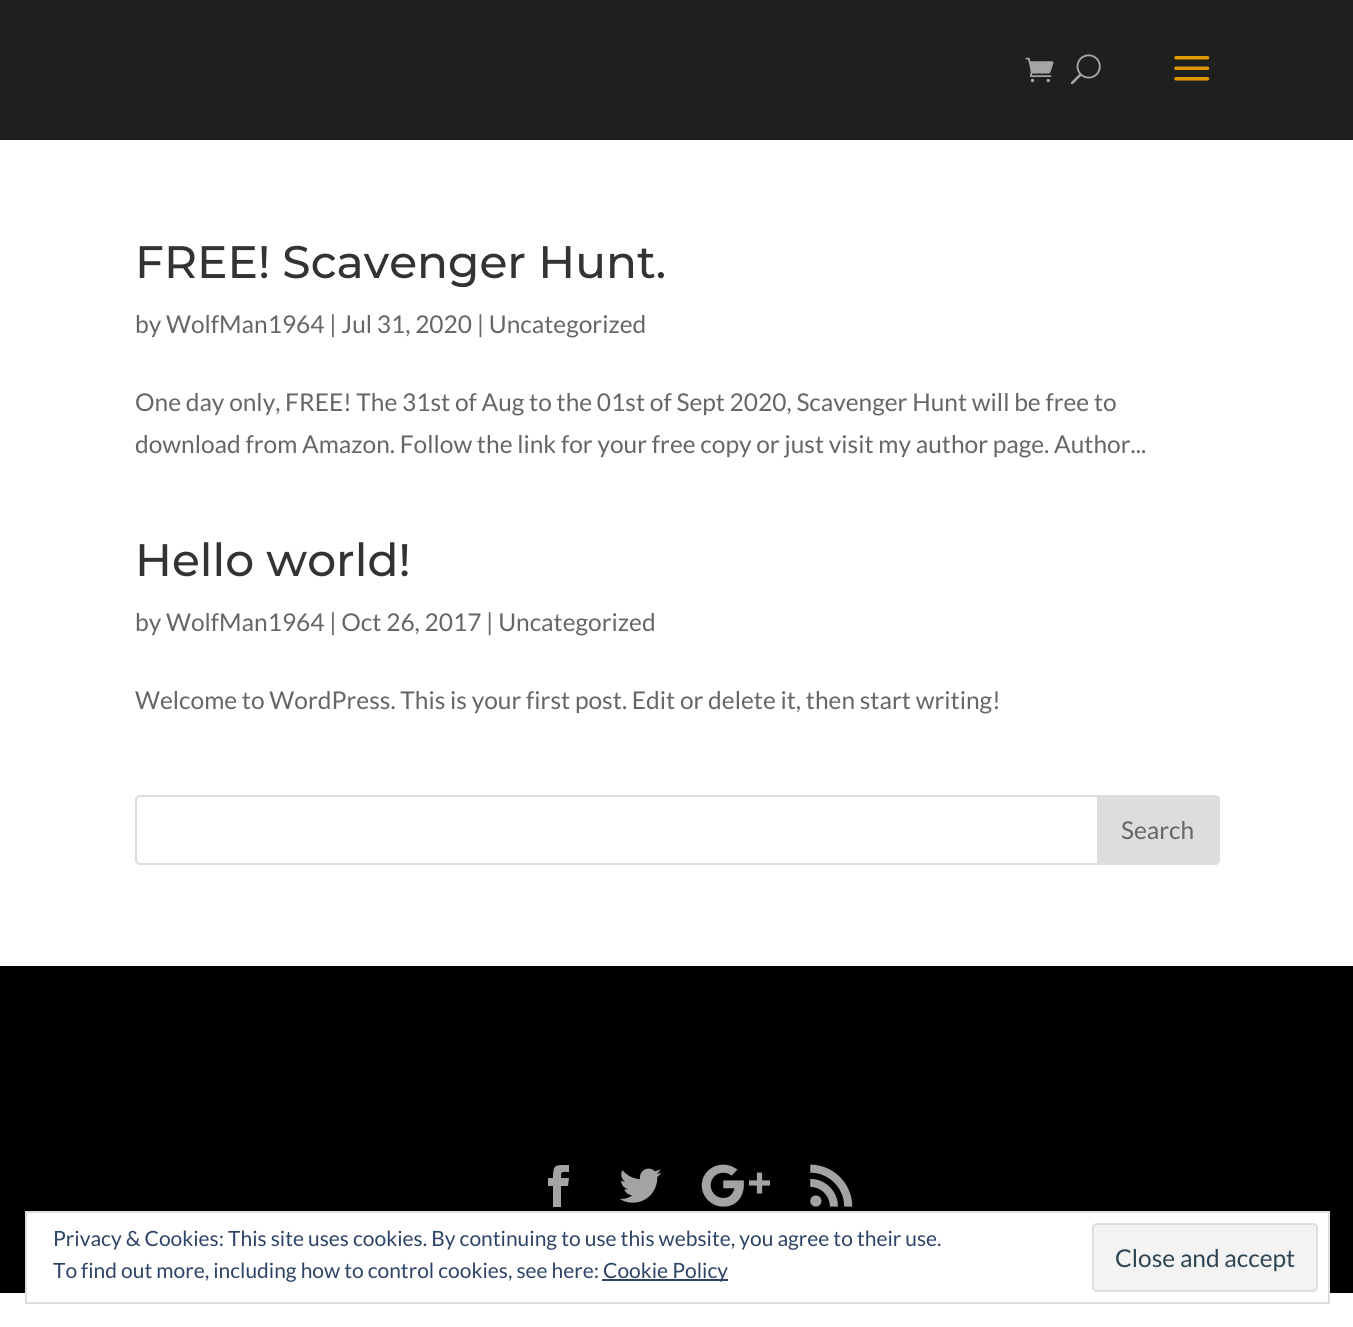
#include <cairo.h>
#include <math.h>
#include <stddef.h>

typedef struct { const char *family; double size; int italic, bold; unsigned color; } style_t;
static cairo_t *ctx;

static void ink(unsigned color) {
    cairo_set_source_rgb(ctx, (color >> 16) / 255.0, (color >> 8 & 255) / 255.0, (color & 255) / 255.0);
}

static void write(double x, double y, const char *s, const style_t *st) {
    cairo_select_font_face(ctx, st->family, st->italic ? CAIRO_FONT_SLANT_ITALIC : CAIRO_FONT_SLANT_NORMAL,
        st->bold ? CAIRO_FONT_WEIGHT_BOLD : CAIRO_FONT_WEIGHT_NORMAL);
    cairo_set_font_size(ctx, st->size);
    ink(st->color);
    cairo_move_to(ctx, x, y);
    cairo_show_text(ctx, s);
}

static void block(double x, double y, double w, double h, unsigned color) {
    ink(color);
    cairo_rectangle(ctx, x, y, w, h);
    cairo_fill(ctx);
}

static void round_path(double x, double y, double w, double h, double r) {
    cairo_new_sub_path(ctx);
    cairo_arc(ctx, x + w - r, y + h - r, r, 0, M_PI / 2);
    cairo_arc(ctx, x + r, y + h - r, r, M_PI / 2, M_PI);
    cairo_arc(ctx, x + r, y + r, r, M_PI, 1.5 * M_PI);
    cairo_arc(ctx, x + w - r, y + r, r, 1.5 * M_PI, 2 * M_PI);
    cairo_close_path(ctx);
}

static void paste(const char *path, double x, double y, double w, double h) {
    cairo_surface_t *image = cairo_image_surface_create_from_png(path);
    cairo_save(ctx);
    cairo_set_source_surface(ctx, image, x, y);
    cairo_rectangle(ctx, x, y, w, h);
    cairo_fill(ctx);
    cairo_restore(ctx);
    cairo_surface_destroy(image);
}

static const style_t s1 = {"Montserrat Medium", 45.5, 0, 0, 0x333333};
static const style_t s2 = {"Lato", 24.5, 0, 0, 0x666666};
static const style_t s3 = {"Lato", 21, 0, 0, 0x2e4467};
static const style_t s4 = {"Lato", 24.5, 0, 0, 0x2e4453};

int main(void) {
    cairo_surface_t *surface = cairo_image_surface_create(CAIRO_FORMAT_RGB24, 1353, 1327);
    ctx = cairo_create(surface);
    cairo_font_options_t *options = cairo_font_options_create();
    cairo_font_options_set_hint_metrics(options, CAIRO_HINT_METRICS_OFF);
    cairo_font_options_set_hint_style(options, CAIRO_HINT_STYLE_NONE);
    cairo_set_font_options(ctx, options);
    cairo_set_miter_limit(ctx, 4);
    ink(0xffffff);
    cairo_paint(ctx);
    block(0, 0, 1353, 140, 0x1f1f1f);
    paste("pic1.png", 1025, 57, 29, 26);
    paste("pic2.png", 1070, 54, 31, 31);
    paste("pic3.png", 1174, 56, 36, 25);
    write(135, 278, "FREE! Scavenger Hunt.", &s1);
    write(135, 333, "by WolfMan1964 | Jul 31, 2020 | Uncategorized", &s2);
    write(135, 411, "One day only, FREE! The 31st of Aug to the 01st of Sept 2020, Scavenger Hunt will be free to", &s2);
    write(135, 453, "download from Amazon. Follow the link for your free copy or just visit my author page. Author...", &s2);
    write(135, 576, "Hello world!", &s1);
    write(135, 631, "by WolfMan1964 | Oct 26, 2017 | Uncategorized", &s2);
    write(135, 709, "Welcome to WordPress. This is your first post. Edit or delete it, then start writing!", &s2);
    round_path(136, 796, 1083, 68, 4);
    ink(0xdddddd);
    cairo_stroke(ctx);
    cairo_new_path(ctx);
    cairo_move_to(ctx, 1098, 796);
    cairo_line_to(ctx, 1215, 796);
    cairo_curve_to(ctx, 1217, 796, 1219, 798, 1219, 800);
    cairo_line_to(ctx, 1219, 860);
    cairo_curve_to(ctx, 1219, 862, 1217, 864, 1215, 864);
    cairo_line_to(ctx, 1098, 864);
    cairo_close_path(ctx);
    cairo_fill_preserve(ctx);
    cairo_stroke(ctx);
    write(1121, 839, "Search", &s2);
    block(0, 966, 1353, 327, 0x000000);
    ink(0xa3a3a3);
    cairo_new_path(ctx);
    cairo_move_to(ctx, 553, 1207);
    cairo_line_to(ctx, 561, 1207);
    cairo_line_to(ctx, 561, 1186);
    cairo_line_to(ctx, 568, 1186);
    cairo_line_to(ctx, 569, 1178);
    cairo_line_to(ctx, 561, 1178);
    cairo_curve_to(ctx, 561, 1171, 561, 1172, 569, 1172);
    cairo_line_to(ctx, 569, 1165);
    cairo_curve_to(ctx, 555, 1165, 553, 1164, 553, 1178);
    cairo_line_to(ctx, 548, 1178);
    cairo_line_to(ctx, 548, 1186);
    cairo_line_to(ctx, 553, 1186);
    cairo_close_path(ctx);
    cairo_fill(ctx);
    paste("pic4.png", 619, 1168, 43, 35);
    paste("pic5.png", 701, 1164, 69, 43);
    paste("pic6.png", 810, 1164, 43, 43);
    block(27, 1213, 1301, 80, 0xffffff);
    cairo_rectangle(ctx, 26, 1212, 1303, 91);
    ink(0xdedede);
    cairo_stroke(ctx);
    write(53, 1246, "Privacy & Cookies: This site uses cookies. By continuing to use this website, you agree to their use.", &s3);
    write(53, 1278, "To find out more, including how to control cookies, see here:", &s3);
    block(602, 1279, 126, 2, 0x2e4467);
    write(603, 1278, "Cookie Policy", &s3);
    ink(0xf3f3f3);
    round_path(1093, 1224, 224, 67, 4);
    cairo_fill_preserve(ctx);
    ink(0xdedede);
    cairo_stroke(ctx);
    write(1115, 1267, "Close and accept", &s4);
    cairo_surface_write_to_png(surface, "screenshot.png");
    cairo_font_options_destroy(options);
    cairo_destroy(ctx);
    cairo_surface_destroy(surface);
    return 0;
}
